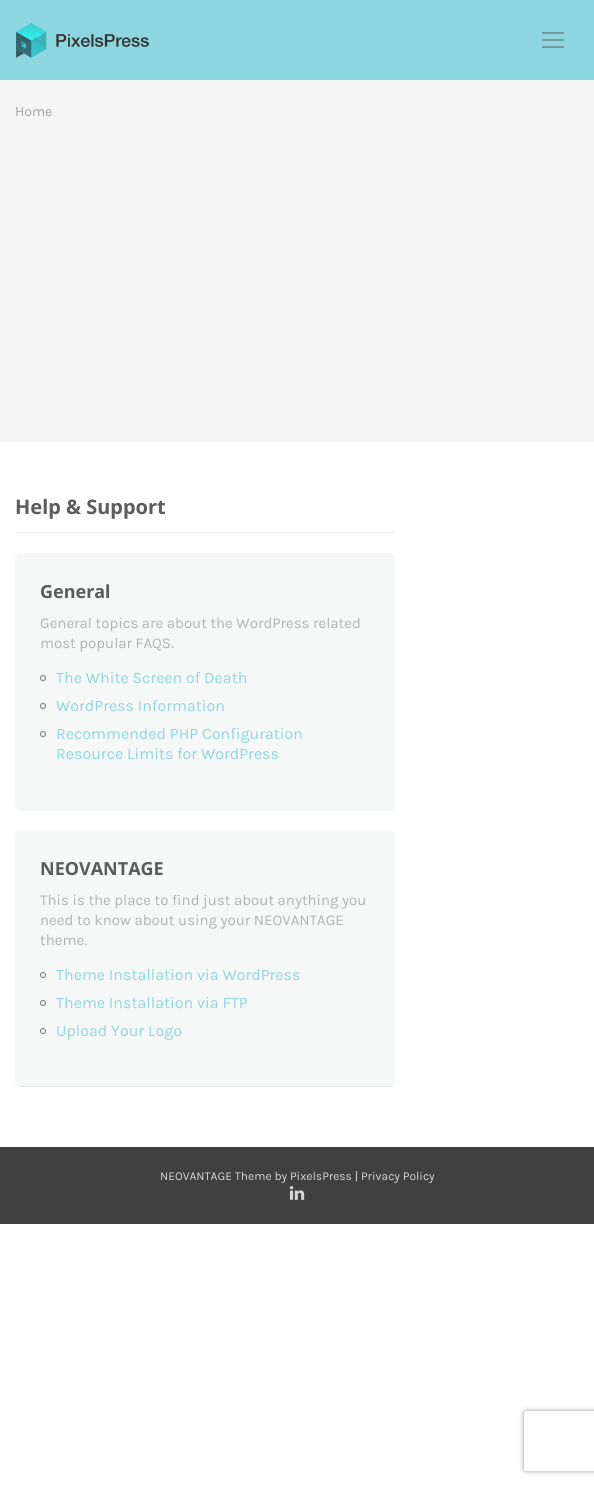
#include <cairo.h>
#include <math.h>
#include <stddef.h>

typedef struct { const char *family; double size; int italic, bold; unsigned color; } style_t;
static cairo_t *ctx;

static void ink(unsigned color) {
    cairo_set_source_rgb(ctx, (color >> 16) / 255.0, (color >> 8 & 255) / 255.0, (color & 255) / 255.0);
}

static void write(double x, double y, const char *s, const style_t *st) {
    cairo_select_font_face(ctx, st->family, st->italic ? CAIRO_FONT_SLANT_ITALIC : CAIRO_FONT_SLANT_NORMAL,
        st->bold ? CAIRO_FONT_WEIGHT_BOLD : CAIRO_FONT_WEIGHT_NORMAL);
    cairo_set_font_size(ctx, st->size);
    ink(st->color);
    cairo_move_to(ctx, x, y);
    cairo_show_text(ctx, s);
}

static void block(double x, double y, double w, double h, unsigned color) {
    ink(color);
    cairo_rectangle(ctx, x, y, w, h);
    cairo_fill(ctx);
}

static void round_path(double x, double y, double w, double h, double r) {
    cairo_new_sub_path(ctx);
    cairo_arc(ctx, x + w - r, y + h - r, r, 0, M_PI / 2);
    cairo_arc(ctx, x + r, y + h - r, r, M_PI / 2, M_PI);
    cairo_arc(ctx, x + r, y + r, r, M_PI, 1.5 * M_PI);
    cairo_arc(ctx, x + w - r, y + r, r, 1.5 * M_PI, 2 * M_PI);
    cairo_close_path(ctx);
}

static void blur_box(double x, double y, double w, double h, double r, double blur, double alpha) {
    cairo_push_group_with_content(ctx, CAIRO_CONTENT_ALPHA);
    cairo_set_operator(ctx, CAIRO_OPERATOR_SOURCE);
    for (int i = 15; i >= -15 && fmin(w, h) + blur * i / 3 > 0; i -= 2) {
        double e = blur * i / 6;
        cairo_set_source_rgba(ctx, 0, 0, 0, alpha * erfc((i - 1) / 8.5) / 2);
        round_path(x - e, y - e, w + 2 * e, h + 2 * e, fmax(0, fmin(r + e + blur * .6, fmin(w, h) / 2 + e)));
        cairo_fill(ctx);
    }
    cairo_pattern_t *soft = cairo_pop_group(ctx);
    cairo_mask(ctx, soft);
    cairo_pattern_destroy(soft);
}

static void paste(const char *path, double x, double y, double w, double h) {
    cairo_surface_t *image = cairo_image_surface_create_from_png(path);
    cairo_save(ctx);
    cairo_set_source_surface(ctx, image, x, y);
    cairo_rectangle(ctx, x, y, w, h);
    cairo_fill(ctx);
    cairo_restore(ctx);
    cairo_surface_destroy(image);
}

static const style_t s1 = {"Karla", 14, 0, 0, 0xa0a0a0};
static const style_t s2 = {"Noto Sans", 20, 0, 1, 0x5c5c5c};
static const style_t s3 = {"Noto Sans", 18, 0, 1, 0x5c5c5c};
static const style_t s4 = {"Karla", 15, 0, 0, 0xb2b2b2};
static const style_t s5 = {"Karla", 16, 0, 0, 0x8dd6e0};
static const style_t s6 = {"Karla", 12, 0, 0, 0xd6d6d6};

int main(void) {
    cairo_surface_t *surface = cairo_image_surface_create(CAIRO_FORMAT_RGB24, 594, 1485);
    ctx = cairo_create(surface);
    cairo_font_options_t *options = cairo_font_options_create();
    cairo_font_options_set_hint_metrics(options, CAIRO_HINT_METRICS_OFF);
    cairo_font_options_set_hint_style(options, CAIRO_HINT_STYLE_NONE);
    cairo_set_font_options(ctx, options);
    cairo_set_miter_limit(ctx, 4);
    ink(0xffffff);
    cairo_paint(ctx);
    block(0, 0, 594, 80, 0x8dd6e0);
    paste("pic1.png", 16, 23, 133, 35);
    paste("pic2.png", 542, 32, 22, 16);
    block(0, 80, 594, 362, 0xf5f5f5);
    write(15, 116, "Home", &s1);
    block(15, 532, 380, 1, 0xebebeb);
    write(15, 514, "Help & Support", &s2);
    ink(0xf6f7f7);
    round_path(15, 553, 380, 257, 5);
    cairo_fill(ctx);
    block(18, 809, 375, 1, 0xebebeb);
    write(40, 598, "General", &s3);
    write(40, 628, "General topics are about the WordPress related", &s4);
    write(40, 648, "most popular FAQS.", &s4);
    cairo_new_path(ctx);
    cairo_arc(ctx, 43, 678, 2.5, 0, 2 * M_PI);
    ink(0x7a7a7a);
    cairo_set_line_width(ctx, 1);
    cairo_stroke(ctx);
    write(56, 683, "The White Screen of Death", &s5);
    cairo_new_path(ctx);
    cairo_arc(ctx, 43, 706, 2.5, 0, 2 * M_PI);
    ink(0x7a7a7a);
    cairo_stroke(ctx);
    write(56, 711, "WordPress Information", &s5);
    cairo_new_path(ctx);
    cairo_arc(ctx, 43, 734, 2.5, 0, 2 * M_PI);
    ink(0x7a7a7a);
    cairo_stroke(ctx);
    write(56, 739, "Recommended PHP Configuration", &s5);
    write(56, 759, "Resource Limits for WordPress", &s5);
    ink(0xf6f7f7);
    round_path(15, 830, 380, 257, 5);
    cairo_fill(ctx);
    block(18, 1086, 375, 1, 0xebebeb);
    write(40, 875, "NEOVANTAGE", &s3);
    write(40, 905, "This is the place to find just about anything you", &s4);
    write(40, 925, "need to know about using your NEOVANTAGE", &s4);
    write(40, 945, "theme.", &s4);
    cairo_new_path(ctx);
    cairo_arc(ctx, 43, 975, 2.5, 0, 2 * M_PI);
    ink(0x7a7a7a);
    cairo_stroke(ctx);
    write(56, 980, "Theme Installation via WordPress", &s5);
    cairo_new_path(ctx);
    cairo_arc(ctx, 43, 1003, 2.5, 0, 2 * M_PI);
    ink(0x7a7a7a);
    cairo_stroke(ctx);
    write(56, 1008, "Theme Installation via FTP", &s5);
    cairo_new_path(ctx);
    cairo_arc(ctx, 43, 1031, 2.5, 0, 2 * M_PI);
    ink(0x7a7a7a);
    cairo_stroke(ctx);
    write(56, 1036, "Upload Your Logo", &s5);
    block(0, 1147, 594, 77, 0x404040);
    write(160, 1180, "NEOVANTAGE Theme by PixelsPress | Privacy Policy", &s6);
    paste("pic3.png", 289, 1186, 16, 14);
    cairo_save(ctx);
    cairo_set_fill_rule(ctx, CAIRO_FILL_RULE_EVEN_ODD);
    cairo_new_path(ctx);
    cairo_move_to(ctx, 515, 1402);
    cairo_line_to(ctx, 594, 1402);
    cairo_line_to(ctx, 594, 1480);
    cairo_line_to(ctx, 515, 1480);
    cairo_close_path(ctx);
    cairo_move_to(ctx, 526, 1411);
    cairo_line_to(ctx, 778, 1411);
    cairo_curve_to(ctx, 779, 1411, 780, 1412, 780, 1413);
    cairo_line_to(ctx, 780, 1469);
    cairo_curve_to(ctx, 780, 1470, 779, 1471, 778, 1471);
    cairo_line_to(ctx, 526, 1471);
    cairo_curve_to(ctx, 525, 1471, 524, 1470, 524, 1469);
    cairo_line_to(ctx, 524, 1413);
    cairo_curve_to(ctx, 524, 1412, 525, 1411, 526, 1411);
    cairo_close_path(ctx);
    cairo_clip(ctx);
    ink(0x999999);
    blur_box(524, 1411, 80, 60, 2, 2.5, 1);
    cairo_restore(ctx);
    cairo_surface_write_to_png(surface, "screenshot.png");
    cairo_font_options_destroy(options);
    cairo_destroy(ctx);
    cairo_surface_destroy(surface);
    return 0;
}
